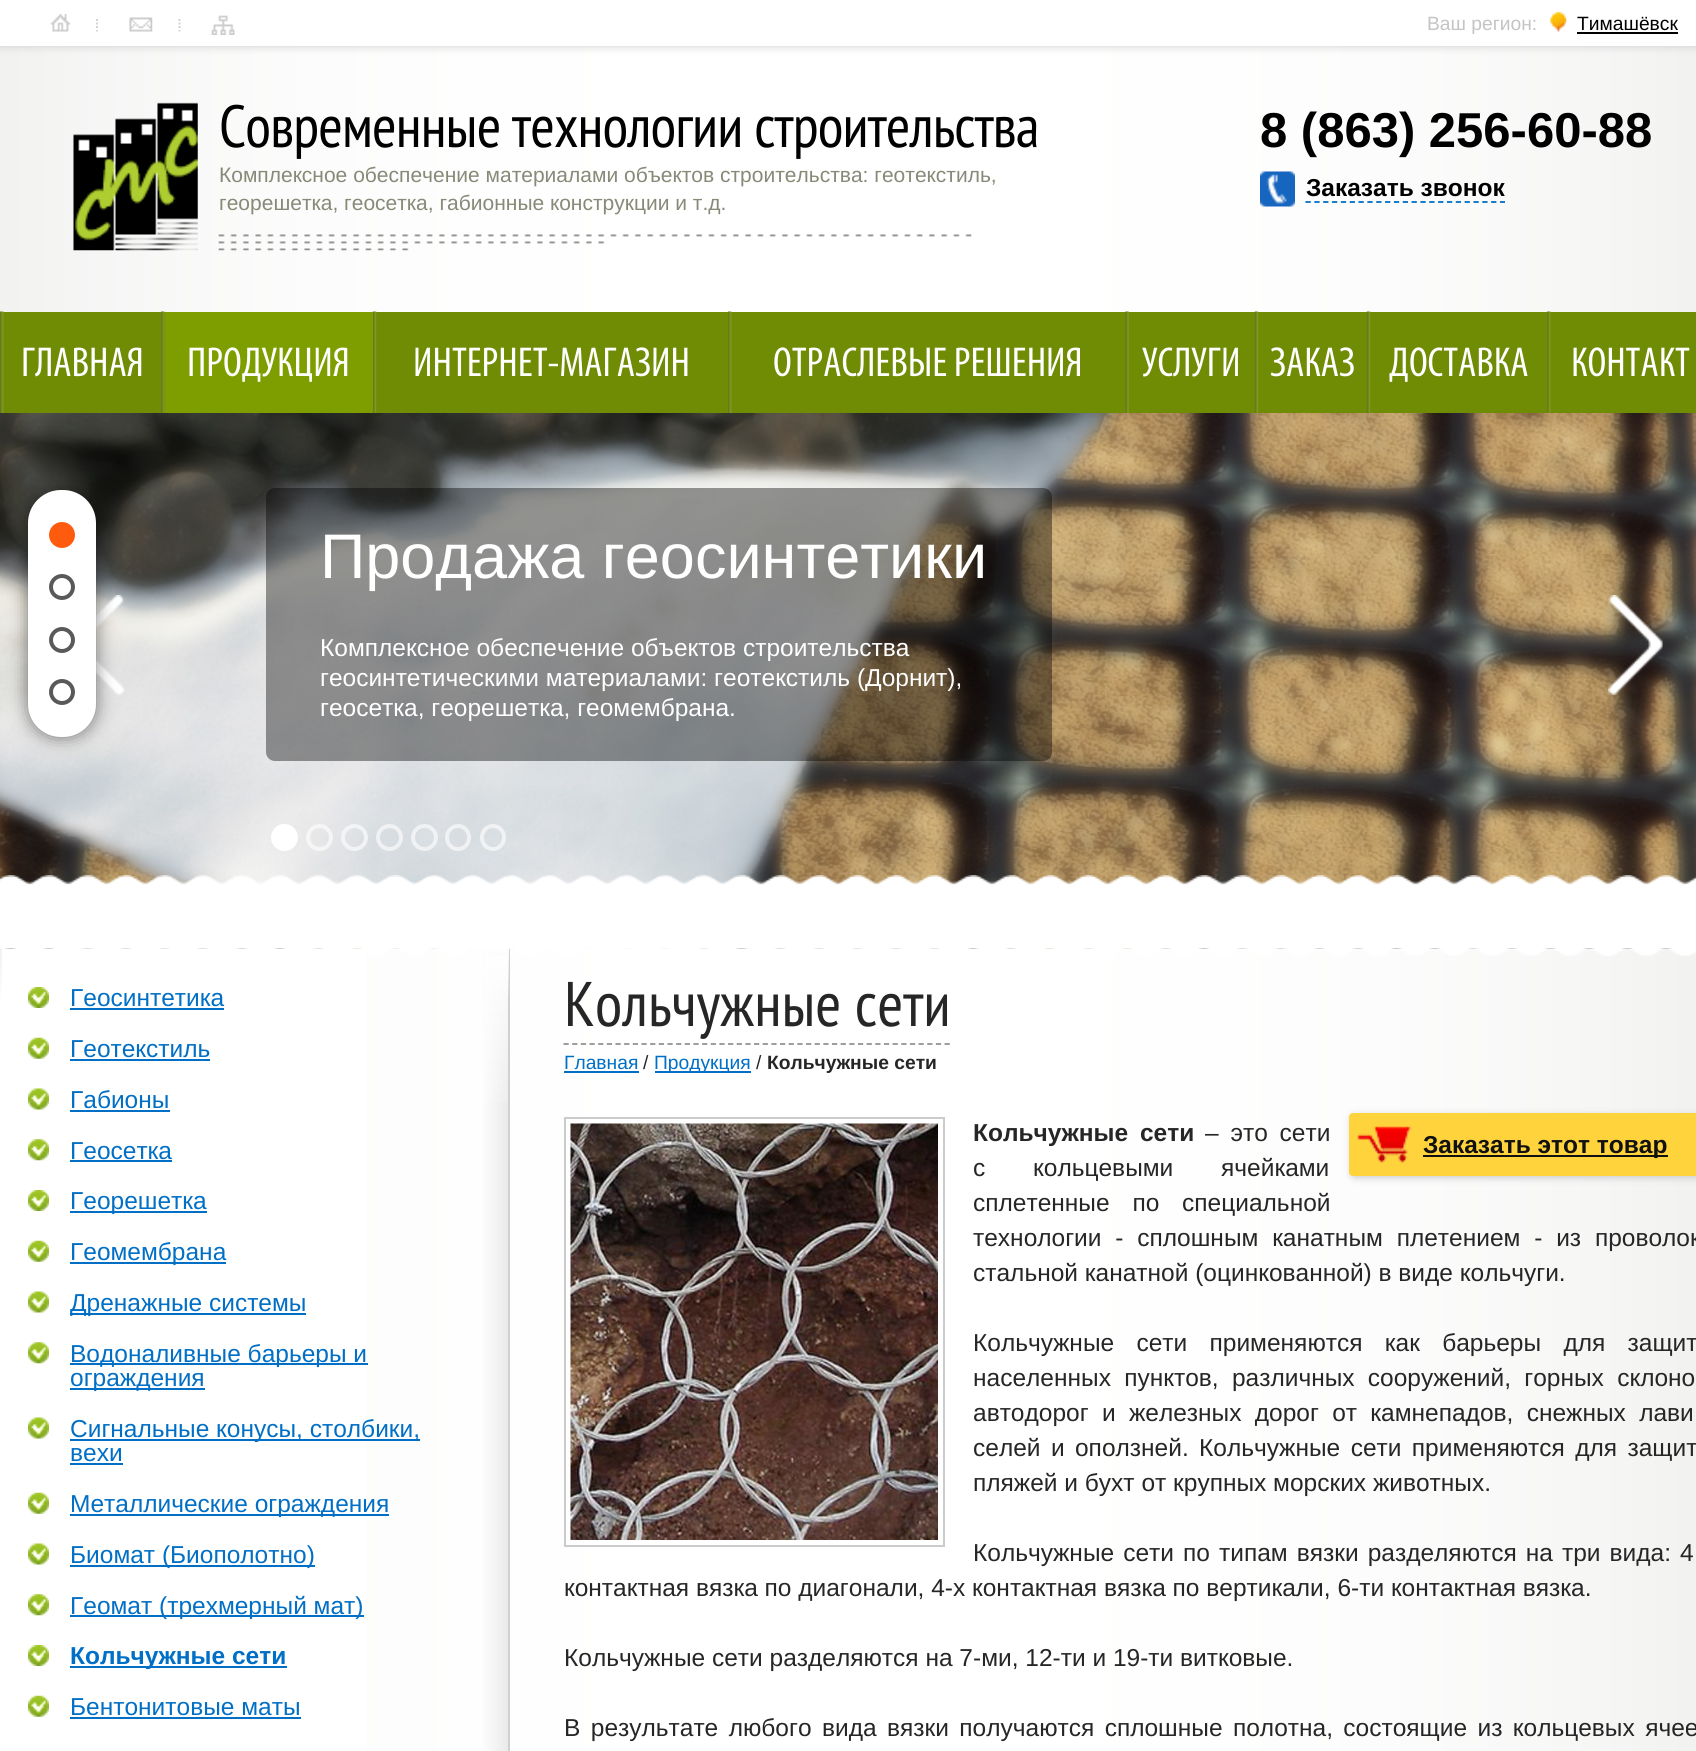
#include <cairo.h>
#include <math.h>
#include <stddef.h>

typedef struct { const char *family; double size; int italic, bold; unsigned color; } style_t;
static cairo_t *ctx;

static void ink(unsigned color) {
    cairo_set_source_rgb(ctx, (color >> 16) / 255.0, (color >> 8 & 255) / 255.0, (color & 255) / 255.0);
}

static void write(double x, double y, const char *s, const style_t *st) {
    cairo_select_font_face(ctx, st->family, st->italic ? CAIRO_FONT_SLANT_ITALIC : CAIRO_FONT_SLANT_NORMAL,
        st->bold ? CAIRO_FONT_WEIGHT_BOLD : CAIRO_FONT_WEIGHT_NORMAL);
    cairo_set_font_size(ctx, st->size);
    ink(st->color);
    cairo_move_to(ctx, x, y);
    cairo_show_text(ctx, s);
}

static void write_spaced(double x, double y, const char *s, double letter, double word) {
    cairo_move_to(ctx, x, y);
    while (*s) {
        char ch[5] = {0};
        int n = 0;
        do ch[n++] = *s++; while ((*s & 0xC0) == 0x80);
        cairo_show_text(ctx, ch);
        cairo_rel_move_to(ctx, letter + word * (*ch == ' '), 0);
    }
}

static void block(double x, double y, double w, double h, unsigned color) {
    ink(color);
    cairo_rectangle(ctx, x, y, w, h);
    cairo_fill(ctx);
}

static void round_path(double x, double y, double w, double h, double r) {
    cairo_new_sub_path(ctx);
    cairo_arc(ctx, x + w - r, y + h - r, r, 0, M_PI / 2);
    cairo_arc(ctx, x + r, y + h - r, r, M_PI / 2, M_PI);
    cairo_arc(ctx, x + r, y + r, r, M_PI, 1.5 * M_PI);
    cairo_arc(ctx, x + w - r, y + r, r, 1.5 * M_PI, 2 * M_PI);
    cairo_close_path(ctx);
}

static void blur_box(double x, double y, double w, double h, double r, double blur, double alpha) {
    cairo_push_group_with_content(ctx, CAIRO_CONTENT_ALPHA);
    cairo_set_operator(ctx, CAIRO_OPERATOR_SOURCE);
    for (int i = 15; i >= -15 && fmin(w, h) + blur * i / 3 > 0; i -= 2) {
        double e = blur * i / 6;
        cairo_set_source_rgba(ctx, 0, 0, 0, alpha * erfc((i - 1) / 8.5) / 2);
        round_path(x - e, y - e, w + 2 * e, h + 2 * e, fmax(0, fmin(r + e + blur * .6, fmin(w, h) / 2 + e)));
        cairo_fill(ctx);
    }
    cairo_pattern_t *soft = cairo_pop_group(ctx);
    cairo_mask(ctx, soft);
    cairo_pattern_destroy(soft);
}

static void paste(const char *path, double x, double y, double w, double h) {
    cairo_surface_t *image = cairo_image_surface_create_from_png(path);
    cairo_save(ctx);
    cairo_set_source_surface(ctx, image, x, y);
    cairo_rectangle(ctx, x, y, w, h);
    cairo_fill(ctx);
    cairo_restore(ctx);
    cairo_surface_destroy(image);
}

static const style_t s1 = {"Liberation Sans", 19.25, 0, 0, 0xc4c4c4};
static const style_t s2 = {"Liberation Sans", 19.25, 0, 0, 0x000000};
static const style_t s3 = {"Liberation Sans", 21, 0, 0, 0x868a77};
static const style_t s4 = {"Liberation Sans", 49, 0, 1, 0x000000};
static const style_t s5 = {"Liberation Sans", 24.5, 0, 1, 0x000000};
static const style_t s6 = {"Myriad", 42, 0, 0, 0xffffff};
static const style_t s7 = {"Liberation Sans", 63, 0, 0, 0xffffff};
static const style_t s8 = {"Liberation Sans", 24.5, 0, 0, 0xffffff};
static const style_t s9 = {"Liberation Sans", 24.5, 0, 0, 0x006fc5};
static const style_t s10 = {"Liberation Sans", 24.5, 0, 1, 0x006fc5};
static const style_t s11 = {"PT Sans Narrow", 63, 0, 0, 0x262626};
static const style_t s12 = {"Liberation Sans", 19.25, 0, 0, 0x006fc5};
static const style_t s13 = {"Liberation Sans", 19.25, 0, 0, 0x262626};
static const style_t s14 = {"Liberation Sans", 19.25, 0, 1, 0x262626};
static const style_t s15 = {"Liberation Sans", 24.5, 0, 0, 0x262626};
static const style_t s16 = {"Liberation Sans", 24.5, 0, 1, 0x111111};

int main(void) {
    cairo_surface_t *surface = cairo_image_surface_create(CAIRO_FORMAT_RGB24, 1696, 1751);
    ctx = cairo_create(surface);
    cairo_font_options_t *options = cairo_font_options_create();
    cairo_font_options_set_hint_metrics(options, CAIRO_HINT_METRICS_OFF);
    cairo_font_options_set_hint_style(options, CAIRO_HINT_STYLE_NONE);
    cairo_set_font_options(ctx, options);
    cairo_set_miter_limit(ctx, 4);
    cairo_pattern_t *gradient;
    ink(0xe6e7e4);
    cairo_paint(ctx);
    paste("pic1.png", 0, 46, 1696, 1705);
    ink(0xcccccc);
    blur_box(-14, 0, 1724, 46, 0, 4.5, 1);
    block(0, 0, 1696, 46, 0xffffff);
    paste("pic2.png", 50, 14, 20, 18);
    cairo_new_path(ctx);
    cairo_move_to(ctx, 97, 19);
    cairo_line_to(ctx, 97, 21);
    cairo_move_to(ctx, 97, 22.5);
    cairo_line_to(ctx, 97, 24.5);
    cairo_move_to(ctx, 97, 26);
    cairo_line_to(ctx, 97, 28);
    cairo_move_to(ctx, 97, 30);
    cairo_line_to(ctx, 97, 31.5);
    ink(0xd0d0d0);
    cairo_set_line_width(ctx, 1.8);
    cairo_stroke(ctx);
    paste("pic3.png", 129, 17, 24, 15);
    cairo_new_path(ctx);
    cairo_move_to(ctx, 179.5, 19);
    cairo_line_to(ctx, 179.5, 21);
    cairo_move_to(ctx, 179.5, 22.5);
    cairo_line_to(ctx, 179.5, 24.5);
    cairo_move_to(ctx, 179.5, 26);
    cairo_line_to(ctx, 179.5, 28);
    cairo_move_to(ctx, 179.5, 30);
    cairo_line_to(ctx, 179.5, 31.5);
    cairo_stroke(ctx);
    paste("pic4.png", 211, 15, 24, 20);
    write(1427, 30, "Ваш регион:", &s1);
    paste("pic5.png", 1550, 12, 17, 21);
    write(1577, 30, "Тимашёвск", &s2);
    block(1577, 32, 101, 2, 0x000000);
    paste("pic6.png", 73, 102, 125, 149);
    paste("pic7.png", 218, 234, 754, 17);
    cairo_select_font_face(ctx, "PT Sans Narrow", CAIRO_FONT_SLANT_NORMAL, CAIRO_FONT_WEIGHT_NORMAL);
    cairo_set_font_size(ctx, 59.5);
    write_spaced(219, 147, "Современные технологии строительства", -0.9, 0);
    write(219, 182, "Комплексное обеспечение материалами объектов строительства: геотекстиль,", &s3);
    write(219, 210, "георешетка, геосетка, габионные конструкции и т.д.", &s3);
    write(1260, 147, "8 (863) 256-60-88", &s4);
    paste("pic8.png", 1260, 171, 35, 36);
    write(1306, 196, "Заказать звонок", &s5);
    cairo_new_path(ctx);
    cairo_move_to(ctx, 1305.5, 202);
    cairo_line_to(ctx, 1505, 202);
    ink(0x006fc5);
    cairo_set_dash(ctx, (double[]){5.25, 3.59}, 2, 0);
    cairo_stroke(ctx);
    block(3, 312, 1693, 101, 0x708b04);
    paste("pic9.png", 0, 311, 4, 102);
    paste("pic10.png", 161, 311, 4, 102);
    write(21, 376, "ГЛАВНАЯ", &s6);
    paste("pic11.png", 372, 311, 5, 102);
    block(165, 312, 208, 101, 0x7e9e00);
    write(187, 376, "ПРОДУКЦИЯ", &s6);
    paste("pic12.png", 728, 311, 4, 102);
    write(413, 376, "ИНТЕРНЕТ-МАГАЗИН", &s6);
    paste("pic13.png", 1125, 311, 4, 102);
    write(773, 376, "ОТРАСЛЕВЫЕ РЕШЕНИЯ", &s6);
    paste("pic14.png", 1254, 311, 5, 102);
    write(1142, 376, "УСЛУГИ", &s6);
    paste("pic15.png", 1366, 311, 5, 102);
    write(1270, 376, "ЗАКАЗ", &s6);
    paste("pic16.png", 1547, 311, 4, 102);
    write(1389, 376, "ДОСТАВКА", &s6);
    write(1571, 376, "КОНТАКТ", &s6);
    paste("pic17.png", 0, 413, 1696, 536);
    paste("pic18.png", 96, 595, 29, 100);
    cairo_set_source_rgba(ctx, 0, 0, 0, 0.4);
    round_path(266, 488, 786, 273, 9);
    cairo_fill(ctx);
    write(320, 578, "Продажа геосинтетики", &s7);
    write(320, 656, "Комплексное обеспечение объектов строительства", &s8);
    write(320, 686, "геосинтетическими материалами: геотекстиль (Дорнит),", &s8);
    write(320, 716, "геосетка, георешетка, геомембрана.", &s8);
    paste("pic19.png", 1608, 595, 55, 100);
    cairo_arc(ctx, 284.5, 837.5, 11.5, 0, 2 * M_PI);
    cairo_fill_preserve(ctx);
    cairo_set_line_width(ctx, 4);
    cairo_set_dash(ctx, NULL, 0, 0);
    cairo_stroke(ctx);
    cairo_arc(ctx, 319.5, 837.5, 11.5, 0, 2 * M_PI);
    cairo_set_source_rgba(ctx, 1, 1, 1, 0.6);
    cairo_stroke(ctx);
    cairo_arc(ctx, 354.5, 837.5, 11.5, 0, 2 * M_PI);
    cairo_stroke(ctx);
    cairo_arc(ctx, 389.5, 837.5, 11.5, 0, 2 * M_PI);
    cairo_stroke(ctx);
    cairo_arc(ctx, 424.5, 837.5, 11.5, 0, 2 * M_PI);
    cairo_stroke(ctx);
    round_path(447, 826, 22, 23, 11);
    cairo_stroke(ctx);
    round_path(482, 826, 22, 23, 11);
    cairo_stroke(ctx);
    block(0, 949, 367, 802, 0xffffff);
    paste("pic20.png", 0, 875, 1696, 81);
    gradient = cairo_pattern_create_linear(-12, 949, -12, 1001);
    cairo_pattern_add_color_stop_rgba(gradient, 0, 0.941, 0.945, 0.937, 1);
    cairo_pattern_add_color_stop_rgba(gradient, 1, 1, 1, 1, 1);
    cairo_set_source(ctx, gradient);
    cairo_pattern_destroy(gradient);
    cairo_rectangle(ctx, 0, 949, 2, 52);
    cairo_fill(ctx);
    paste("pic21.png", 28, 987, 21, 21);
    write(70, 1006, "Геосинтетика", &s9);
    block(70, 1008, 154, 2, 0x006fc5);
    paste("pic22.png", 28, 1037, 21, 22);
    write(70, 1057, "Геотекстиль", &s9);
    block(70, 1059, 140, 2, 0x006fc5);
    paste("pic23.png", 28, 1088, 21, 22);
    write(70, 1108, "Габионы", &s9);
    block(70, 1110, 100, 2, 0x006fc5);
    paste("pic24.png", 28, 1139, 21, 22);
    write(70, 1159, "Геосетка", &s9);
    block(70, 1160, 102, 2, 0x006fc5);
    paste("pic21.png", 28, 1190, 21, 21);
    block(70, 1211, 137, 2, 0x006fc5);
    write(70, 1209, "Георешетка", &s9);
    paste("pic22.png", 28, 1240, 21, 22);
    block(70, 1262, 156, 2, 0x006fc5);
    write(70, 1260, "Геомембрана", &s9);
    paste("pic23.png", 28, 1291, 21, 22);
    block(70, 1313, 236, 2, 0x006fc5);
    write(70, 1311, "Дренажные системы", &s9);
    paste("pic24.png", 28, 1342, 21, 22);
    block(70, 1363, 298, 2, 0x006fc5);
    write(70, 1362, "Водоналивные барьеры и", &s9);
    block(70, 1388, 135, 2, 0x006fc5);
    write(70, 1386, "ограждения", &s9);
    paste("pic23.png", 28, 1417, 21, 22);
    block(70, 1439, 350, 2, 0x006fc5);
    write(70, 1437, "Сигнальные конусы, столбики,", &s9);
    write(70, 1461, "вехи", &s9);
    block(70, 1463, 53, 2, 0x006fc5);
    paste("pic22.png", 28, 1492, 21, 22);
    block(70, 1514, 319, 2, 0x006fc5);
    write(70, 1512, "Металлические ограждения", &s9);
    paste("pic23.png", 28, 1543, 21, 22);
    block(70, 1565, 245, 2, 0x006fc5);
    write(70, 1563, "Биомат (Биополотно)", &s9);
    paste("pic24.png", 28, 1594, 21, 22);
    block(70, 1615, 294, 2, 0x006fc5);
    write(70, 1614, "Геомат (трехмерный мат)", &s9);
    paste("pic21.png", 28, 1645, 21, 21);
    block(70, 1666, 217, 2, 0x006fc5);
    write(70, 1664, "Кольчужные сети", &s10);
    paste("pic22.png", 28, 1695, 21, 22);
    write(70, 1715, "Бентонитовые маты", &s9);
    block(70, 1717, 231, 2, 0x006fc5);
    gradient = cairo_pattern_create_linear(481, 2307, 508, 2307);
    cairo_pattern_add_color_stop_rgba(gradient, 0, 0.996, 0.996, 0.996, 1);
    cairo_pattern_add_color_stop_rgba(gradient, 1, 0.918, 0.918, 0.918, 1);
    cairo_set_source(ctx, gradient);
    cairo_pattern_destroy(gradient);
    cairo_rectangle(ctx, 483, 950, 25, 801);
    cairo_fill(ctx);
    block(508, 949, 2, 802, 0xd0d0d0);
    gradient = cairo_pattern_create_linear(495, 949, 495, 1001);
    cairo_pattern_add_color_stop_rgba(gradient, 0, 0.996, 0.996, 0.996, 1);
    cairo_pattern_add_color_stop_rgba(gradient, 1, 0.996, 0.996, 0.996, 0);
    cairo_set_source(ctx, gradient);
    cairo_pattern_destroy(gradient);
    cairo_rectangle(ctx, 484, 949, 25, 49);
    cairo_fill(ctx);
    gradient = cairo_pattern_create_linear(494, 949, 494, 1124);
    cairo_pattern_add_color_stop_rgba(gradient, 0, 0.996, 0.996, 0.996, 1);
    cairo_pattern_add_color_stop_rgba(gradient, 1, 0.996, 0.996, 0.996, 0);
    cairo_set_source(ctx, gradient);
    cairo_pattern_destroy(gradient);
    cairo_rectangle(ctx, 484, 956, 24, 146);
    cairo_fill(ctx);
    write(564, 1026, "Кольчужные сети", &s11);
    cairo_new_path(ctx);
    cairo_move_to(ctx, 563.5, 1044);
    cairo_line_to(ctx, 950, 1044);
    ink(0x949494);
    cairo_set_line_width(ctx, 1.8);
    cairo_set_dash(ctx, (double[]){5.25, 3.41}, 2, 0);
    cairo_stroke(ctx);
    write(564, 1069, "Главная", &s12);
    block(564, 1071, 75, 2, 0x006fc5);
    write(643, 1069, "/", &s13);
    block(655, 1071, 96, 2, 0x006fc5);
    write(654, 1069, "Продукция", &s12);
    write(756, 1069, "/", &s13);
    write(767, 1069, "Кольчужные сети", &s14);
    cairo_rectangle(ctx, 565, 1118, 379, 428);
    ink(0xcbcbcb);
    cairo_set_line_width(ctx, 2);
    cairo_set_dash(ctx, NULL, 0, 0);
    cairo_stroke(ctx);
    paste("pic25.png", 570, 1123, 368, 417);
    cairo_set_font_size(ctx, 24.5);
    ink(0x262626);
    write_spaced(973, 1141, "Кольчужные сети", 0, 5);
    cairo_select_font_face(ctx, "Liberation Sans", CAIRO_FONT_SLANT_NORMAL, CAIRO_FONT_WEIGHT_NORMAL);
    write_spaced(1205, 1141, "– это сети", 0, 5);
    write_spaced(973, 1176, "с кольцевыми ячейками", 0, 41);
    write_spaced(973, 1211, "сплетенные по специальной", 0, 16);
    write_spaced(973, 1246, "технологии - сплошным канатным плетением - из проволок", 0, 7);
    write(973, 1281, "стальной канатной (оцинкованной) в виде кольчуги.", &s15);
    ink(0xcccccc);
    blur_box(1351, 1115, 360, 63, 4, 3.5, 1);
    ink(0xffd33b);
    round_path(1349, 1113, 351, 63, 4);
    cairo_fill(ctx);
    paste("pic26.png", 1357, 1126, 54, 37);
    block(1423, 1155, 245, 2, 0x111111);
    write(1423, 1153, "Заказать этот товар", &s16);
    cairo_select_font_face(ctx, "Liberation Sans", CAIRO_FONT_SLANT_NORMAL, CAIRO_FONT_WEIGHT_NORMAL);
    ink(0x262626);
    write_spaced(973, 1351, "Кольчужные сети применяются как барьеры для защит", 0, 15.5);
    write_spaced(973, 1386, "населенных пунктов, различных сооружений, горных склоно", 0, 6.5);
    write_spaced(973, 1421, "автодорог и железных дорог от камнепадов, снежных лави", 0, 6.5);
    write_spaced(973, 1456, "селей и оползней. Кольчужные сети применяются для защит", 0, 3.6);
    write(973, 1491, "пляжей и бухт от крупных морских животных.", &s15);
    write_spaced(973, 1561, "Кольчужные сети по типам вязки разделяются на три вида: 4", 0, 2.25);
    write(564, 1596, "контактная вязка по диагонали, 4-х контактная вязка по вертикали, 6-ти контактная вязка.", &s15);
    write(564, 1666, "Кольчужные сети разделяются на 7-ми, 12-ти и 19-ти витковые.", &s15);
    write_spaced(564, 1736, "В результате любого вида вязки получаются сплошные полотна, состоящие из кольцевых ячее", 0, 3.6);
    ink(0x000000);
    blur_box(28, 490, 68, 247, 33, 9, 0.5);
    ink(0xffffff);
    round_path(28, 490, 68, 247, 33);
    cairo_fill(ctx);
    ink(0xff5b0e);
    cairo_arc(ctx, 62, 535, 11, 0, 2 * M_PI);
    cairo_fill_preserve(ctx);
    cairo_set_line_width(ctx, 4);
    cairo_stroke(ctx);
    cairo_arc(ctx, 62, 587, 11, 0, 2 * M_PI);
    ink(0x595959);
    cairo_stroke(ctx);
    cairo_arc(ctx, 62, 640, 11, 0, 2 * M_PI);
    cairo_stroke(ctx);
    cairo_arc(ctx, 62, 692, 11, 0, 2 * M_PI);
    cairo_stroke(ctx);
    cairo_surface_write_to_png(surface, "screenshot.png");
    cairo_font_options_destroy(options);
    cairo_destroy(ctx);
    cairo_surface_destroy(surface);
    return 0;
}
